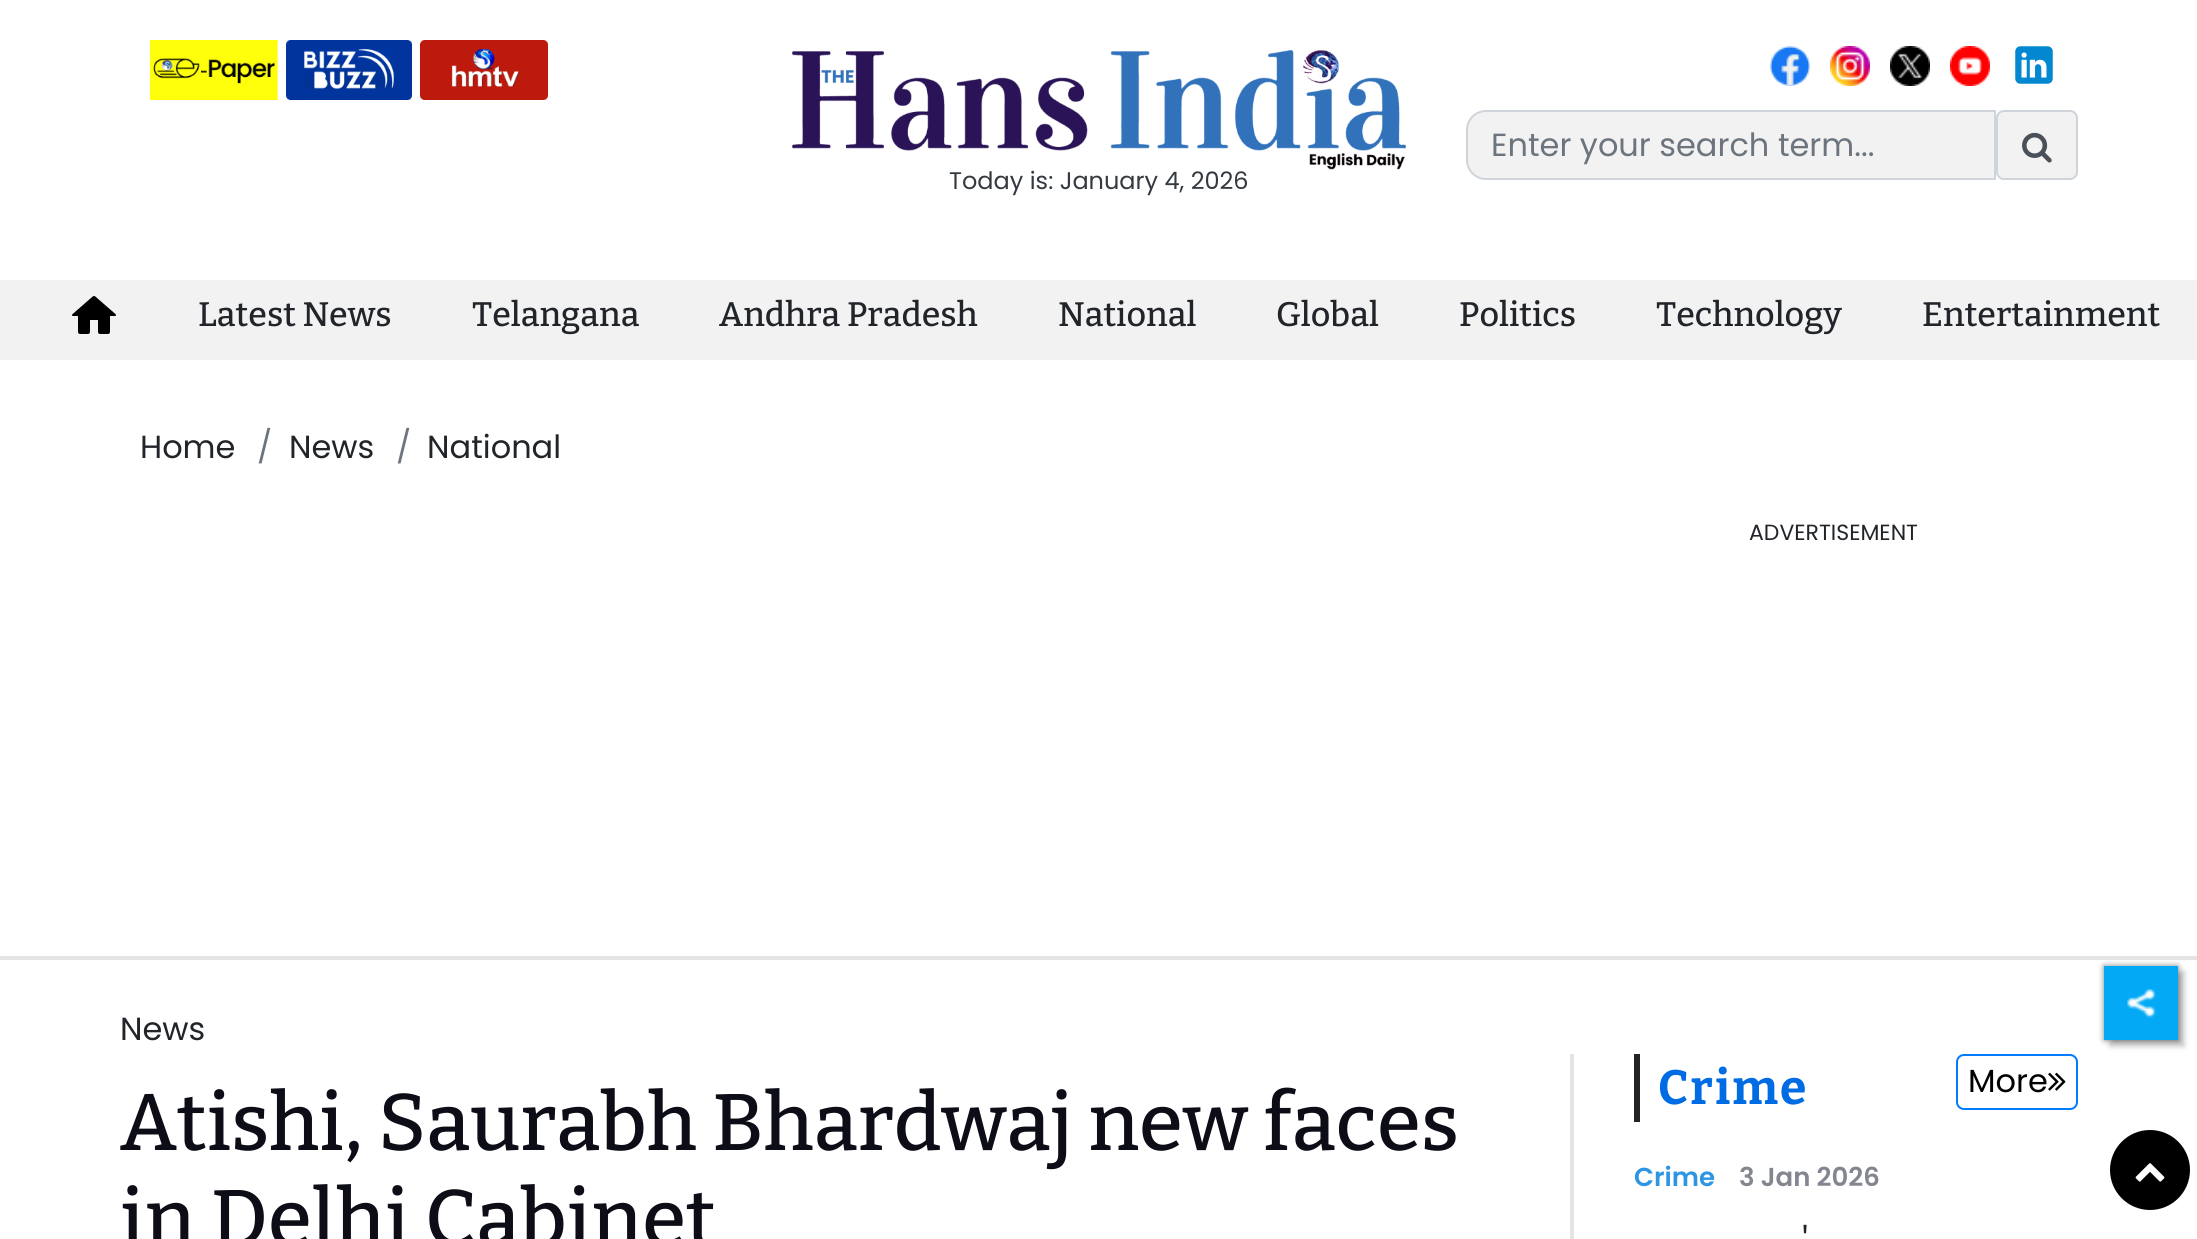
#include <cairo.h>
#include <math.h>
#include <stddef.h>

typedef struct { const char *family; double size; int italic, bold; unsigned color; } style_t;
static cairo_t *ctx;

static void ink(unsigned color) {
    cairo_set_source_rgb(ctx, (color >> 16) / 255.0, (color >> 8 & 255) / 255.0, (color & 255) / 255.0);
}

static void write(double x, double y, const char *s, const style_t *st) {
    cairo_select_font_face(ctx, st->family, st->italic ? CAIRO_FONT_SLANT_ITALIC : CAIRO_FONT_SLANT_NORMAL,
        st->bold ? CAIRO_FONT_WEIGHT_BOLD : CAIRO_FONT_WEIGHT_NORMAL);
    cairo_set_font_size(ctx, st->size);
    ink(st->color);
    cairo_move_to(ctx, x, y);
    cairo_show_text(ctx, s);
}

static void write_spaced(double x, double y, const char *s, double letter, double word) {
    cairo_move_to(ctx, x, y);
    while (*s) {
        char ch[5] = {0};
        int n = 0;
        do ch[n++] = *s++; while ((*s & 0xC0) == 0x80);
        cairo_show_text(ctx, ch);
        cairo_rel_move_to(ctx, letter + word * (*ch == ' '), 0);
    }
}

static void block(double x, double y, double w, double h, unsigned color) {
    ink(color);
    cairo_rectangle(ctx, x, y, w, h);
    cairo_fill(ctx);
}

static void round_path(double x, double y, double w, double h, double r) {
    cairo_new_sub_path(ctx);
    cairo_arc(ctx, x + w - r, y + h - r, r, 0, M_PI / 2);
    cairo_arc(ctx, x + r, y + h - r, r, M_PI / 2, M_PI);
    cairo_arc(ctx, x + r, y + r, r, M_PI, 1.5 * M_PI);
    cairo_arc(ctx, x + w - r, y + r, r, 1.5 * M_PI, 2 * M_PI);
    cairo_close_path(ctx);
}

static void blur_box(double x, double y, double w, double h, double r, double blur, double alpha) {
    cairo_push_group_with_content(ctx, CAIRO_CONTENT_ALPHA);
    cairo_set_operator(ctx, CAIRO_OPERATOR_SOURCE);
    for (int i = 15; i >= -15 && fmin(w, h) + blur * i / 3 > 0; i -= 2) {
        double e = blur * i / 6;
        cairo_set_source_rgba(ctx, 0, 0, 0, alpha * erfc((i - 1) / 8.5) / 2);
        round_path(x - e, y - e, w + 2 * e, h + 2 * e, fmax(0, fmin(r + e + blur * .6, fmin(w, h) / 2 + e)));
        cairo_fill(ctx);
    }
    cairo_pattern_t *soft = cairo_pop_group(ctx);
    cairo_mask(ctx, soft);
    cairo_pattern_destroy(soft);
}

static void paste(const char *path, double x, double y, double w, double h) {
    cairo_surface_t *image = cairo_image_surface_create_from_png(path);
    cairo_save(ctx);
    cairo_set_source_surface(ctx, image, x, y);
    cairo_rectangle(ctx, x, y, w, h);
    cairo_fill(ctx);
    cairo_restore(ctx);
    cairo_surface_destroy(image);
}

static const style_t s1 = {"Poppins", 32, 0, 0, 0x6c757d};
static const style_t s2 = {"Poppins", 24, 0, 0, 0x343a40};
static const style_t s3 = {"Bitter Medium", 34, 0, 0, 0x212529};
static const style_t s4 = {"Poppins", 32, 0, 0, 0x212529};
static const style_t s5 = {"Poppins", 22, 0, 0, 0x212529};
static const style_t s6 = {"Bitter Medium", 80, 0, 0, 0x0c0d16};
static const style_t s7 = {"Poppins", 32, 0, 0, 0x000000};
static const style_t s8 = {"Poppins SemiBold", 26, 0, 0, 0x2d95e3};
static const style_t s9 = {"Poppins SemiBold", 26, 0, 0, 0x83858f};
static const style_t s10 = {"Bitter Medium", 34, 0, 0, 0x232323};

int main(void) {
    cairo_surface_t *surface = cairo_image_surface_create(CAIRO_FORMAT_RGB24, 2197, 1239);
    ctx = cairo_create(surface);
    cairo_font_options_t *options = cairo_font_options_create();
    cairo_font_options_set_hint_metrics(options, CAIRO_HINT_METRICS_OFF);
    cairo_font_options_set_hint_style(options, CAIRO_HINT_STYLE_NONE);
    cairo_set_font_options(ctx, options);
    cairo_set_miter_limit(ctx, 4);
    ink(0xffffff);
    cairo_paint(ctx);
    paste("pic1.png", 150, 40, 128, 60);
    paste("pic2.png", 286, 40, 126, 60);
    paste("pic3.png", 420, 40, 128, 60);
    paste("pic4.png", 1770, 46, 40, 40);
    paste("pic5.png", 1830, 46, 40, 40);
    paste("pic6.png", 1890, 46, 40, 40);
    paste("pic7.png", 1950, 46, 40, 40);
    paste("pic8.png", 2015, 46, 38, 38);
    ink(0xf2f2f3);
    cairo_new_path(ctx);
    cairo_move_to(ctx, 1486, 111);
    cairo_line_to(ctx, 1995, 111);
    cairo_line_to(ctx, 1995, 179);
    cairo_line_to(ctx, 1486, 179);
    cairo_curve_to(ctx, 1475.5, 179, 1467, 170.5, 1467, 160);
    cairo_line_to(ctx, 1467, 130);
    cairo_curve_to(ctx, 1467, 119.5, 1475.5, 111, 1486, 111);
    cairo_close_path(ctx);
    cairo_fill_preserve(ctx);
    ink(0xced4da);
    cairo_stroke(ctx);
    write(1491, 156, "Enter your search term...", &s1);
    ink(0xf2f2f3);
    round_path(1997, 111, 80, 68, 7);
    cairo_fill_preserve(ctx);
    ink(0xced4da);
    cairo_stroke(ctx);
    paste("pic9.png", 2022, 132, 30, 31);
    paste("pic10.png", 792, 50, 614, 120);
    write(949, 189, "Today is: January 4, 2026", &s2);
    block(0, 280, 2197, 80, 0xf2f2f3);
    paste("pic11.png", 72, 296, 44, 38);
    write(198, 326, "Latest News", &s3);
    write(472, 326, "Telangana", &s3);
    write(719, 326, "Andhra Pradesh", &s3);
    write(1058, 326, "National", &s3);
    write(1276, 326, "Global", &s3);
    write(1459, 326, "Politics", &s3);
    write(1656, 326, "Technology", &s3);
    write(1922, 326, "Entertainment", &s3);
    write(140, 458, "Home", &s4);
    write(257, 458, "/", &s1);
    write(289, 458, "News", &s4);
    write(396, 458, "/", &s1);
    write(427, 458, "National", &s4);
    write(1749, 540, "ADVERTISEMENT", &s5);
    block(0, 956, 2197, 4, 0xe4e4e4);
    write(120, 1040, "News", &s4);
    block(1570, 1054, 4, 185, 0xe4e4e4);
    write(120, 1150, "Atishi, Saurabh Bhardwaj new faces", &s6);
    write(120, 1246, "in Delhi Cabinet", &s6);
    block(1634, 1054, 6, 68, 0x232323);
    cairo_select_font_face(ctx, "Bitter", CAIRO_FONT_SLANT_NORMAL, CAIRO_FONT_WEIGHT_BOLD);
    cairo_set_font_size(ctx, 48);
    ink(0x006ce4);
    write_spaced(1658, 1104, "Crime", 2, 0);
    round_path(1957, 1055, 120, 54, 7);
    ink(0x007bff);
    cairo_stroke(ctx);
    write(1968, 1092, "More", &s7);
    paste("pic12.png", 2048, 1072, 18, 19);
    write(1634, 1186, "Crime", &s8);
    write(1739, 1186, "3 Jan 2026", &s9);
    write(1801, 1251, "'", &s10);
    ink(0x000000);
    blur_box(2110, 972, 74, 74, 0, 3, 0.25);
    blur_box(2104, 966, 74, 74, 0, 3, 0.5);
    block(2104, 966, 74, 74, 0x03a9f4);
    paste("pic13.png", 2127, 989, 29, 29);
    ink(0x000000);
    cairo_arc(ctx, 2150, 1170, 40, 0, 2 * M_PI);
    cairo_fill(ctx);
    paste("pic14.png", 2135, 1163, 30, 19);
    cairo_surface_write_to_png(surface, "screenshot.png");
    cairo_font_options_destroy(options);
    cairo_destroy(ctx);
    cairo_surface_destroy(surface);
    return 0;
}
